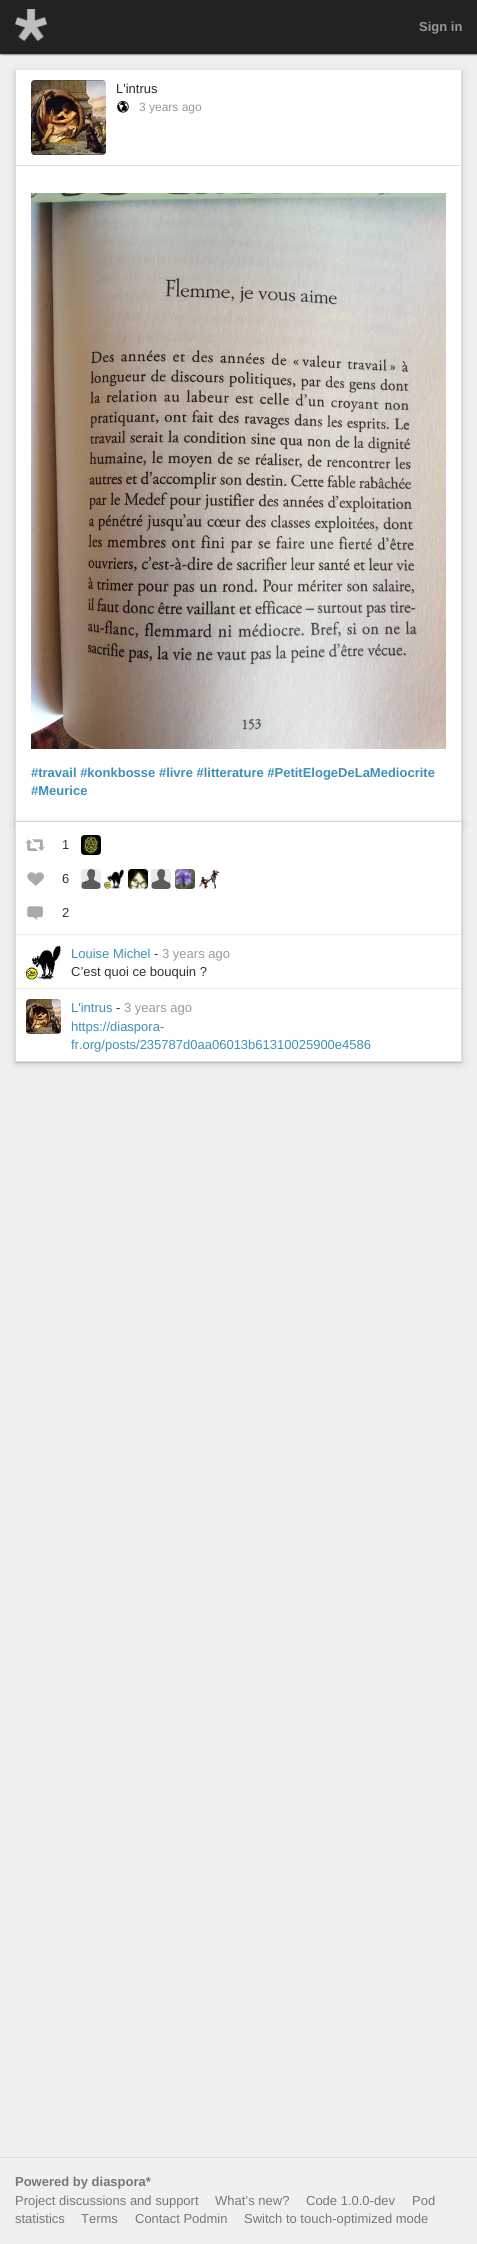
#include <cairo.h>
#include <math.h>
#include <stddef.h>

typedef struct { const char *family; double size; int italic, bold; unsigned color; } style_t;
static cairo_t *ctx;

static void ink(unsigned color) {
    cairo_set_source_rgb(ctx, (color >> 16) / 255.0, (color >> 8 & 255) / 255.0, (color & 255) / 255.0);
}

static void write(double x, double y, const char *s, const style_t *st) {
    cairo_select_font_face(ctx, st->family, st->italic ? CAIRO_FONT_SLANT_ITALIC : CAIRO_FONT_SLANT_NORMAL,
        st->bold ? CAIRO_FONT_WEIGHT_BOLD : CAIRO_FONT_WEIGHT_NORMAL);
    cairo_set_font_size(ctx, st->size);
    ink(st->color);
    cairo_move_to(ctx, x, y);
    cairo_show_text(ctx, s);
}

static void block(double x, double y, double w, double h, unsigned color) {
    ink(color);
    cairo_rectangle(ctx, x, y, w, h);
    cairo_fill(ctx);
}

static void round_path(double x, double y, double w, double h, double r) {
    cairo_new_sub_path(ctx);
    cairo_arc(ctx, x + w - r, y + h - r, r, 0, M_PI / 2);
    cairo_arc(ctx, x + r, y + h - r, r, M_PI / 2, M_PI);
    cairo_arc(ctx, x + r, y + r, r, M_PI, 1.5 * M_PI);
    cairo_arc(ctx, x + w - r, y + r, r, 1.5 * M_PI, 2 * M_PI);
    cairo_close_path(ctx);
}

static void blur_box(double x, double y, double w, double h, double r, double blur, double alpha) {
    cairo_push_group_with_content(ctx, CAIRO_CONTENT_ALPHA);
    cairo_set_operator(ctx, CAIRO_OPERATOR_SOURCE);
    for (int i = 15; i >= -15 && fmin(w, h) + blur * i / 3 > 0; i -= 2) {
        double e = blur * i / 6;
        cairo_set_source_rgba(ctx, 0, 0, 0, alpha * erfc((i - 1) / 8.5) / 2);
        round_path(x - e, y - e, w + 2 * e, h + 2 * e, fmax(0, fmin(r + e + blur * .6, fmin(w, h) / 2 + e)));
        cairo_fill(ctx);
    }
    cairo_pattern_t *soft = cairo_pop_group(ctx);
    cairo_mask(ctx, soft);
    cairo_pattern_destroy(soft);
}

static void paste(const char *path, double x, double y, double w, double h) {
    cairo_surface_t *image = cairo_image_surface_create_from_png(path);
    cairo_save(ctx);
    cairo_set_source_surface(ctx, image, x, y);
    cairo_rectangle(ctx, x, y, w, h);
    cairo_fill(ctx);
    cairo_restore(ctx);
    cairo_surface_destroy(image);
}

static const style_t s1 = {"Liberation Sans", 13, 0, 1, 0x999999};
static const style_t s2 = {"Liberation Sans", 13, 0, 0, 0x2b2b2b};
static const style_t s3 = {"Liberation Sans", 12, 0, 0, 0x999999};
static const style_t s4 = {"Liberation Sans", 13, 0, 1, 0x3f8fba};
static const style_t s5 = {"Liberation Sans", 13, 0, 0, 0x333333};
static const style_t s6 = {"Liberation Sans", 13, 0, 0, 0x3f8fba};
static const style_t s7 = {"Liberation Sans", 13, 0, 0, 0x999999};
static const style_t s8 = {"Liberation Sans", 13, 0, 1, 0x777777};
static const style_t s9 = {"Liberation Sans", 13, 0, 0, 0x777777};

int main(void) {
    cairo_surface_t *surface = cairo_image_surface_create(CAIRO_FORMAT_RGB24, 477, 2244);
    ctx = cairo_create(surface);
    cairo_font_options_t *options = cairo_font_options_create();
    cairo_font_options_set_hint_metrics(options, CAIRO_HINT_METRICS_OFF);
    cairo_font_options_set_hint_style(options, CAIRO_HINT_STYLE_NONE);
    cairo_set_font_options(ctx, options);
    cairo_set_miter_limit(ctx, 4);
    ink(0xf0f0f0);
    cairo_paint(ctx);
    ink(0x000000);
    blur_box(1, 0, 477, 54, 0, 1, 1);
    block(0, 0, 477, 54, 0x222222);
    paste("pic1.png", 15, 9, 32, 32);
    write(419, 31, "Sign in", &s1);
    ink(0x000000);
    blur_box(15, 72, 447, 752, 0, 5, 0.12);
    blur_box(15, 71, 447, 752, 0, 1, 0.16);
    block(16, 70, 445, 751, 0xffffff);
    block(461, 70, 1, 752, 0xdddddd);
    block(15, 821, 447, 1, 0xdddddd);
    block(15, 70, 1, 752, 0xdddddd);
    block(16, 165, 445, 1, 0xdddddd);
    paste("pic2.png", 31, 80, 75, 75);
    write(116, 93, "L'intrus", &s2);
    paste("pic3.png", 117, 101, 12, 12);
    write(139, 111, "3 years ago", &s3);
    paste("pic4.png", 31, 193, 415, 556);
    write(31, 777, "#travail #konkbosse #livre #litterature #PetitElogeDeLaMediocrite", &s4);
    write(31, 795, "#Meurice", &s4);
    ink(0x000000);
    blur_box(15, 824, 447, 240, 0, 5, 0.12);
    blur_box(15, 823, 447, 240, 0, 1, 0.16);
    block(16, 822, 445, 239, 0xffffff);
    block(461, 822, 1, 240, 0xdddddd);
    block(15, 1061, 447, 1, 0xdddddd);
    block(15, 822, 1, 240, 0xdddddd);
    paste("pic5.png", 25, 839, 20, 12);
    write(62, 849, "1", &s5);
    paste("pic6.png", 81, 835, 20, 20);
    paste("pic7.png", 27, 872, 17, 14);
    write(62, 883, "6", &s5);
    paste("pic8.png", 81, 869, 20, 20);
    paste("pic9.png", 104, 869, 20, 20);
    paste("pic10.png", 128, 869, 20, 20);
    paste("pic11.png", 151, 869, 20, 20);
    paste("pic12.png", 175, 869, 20, 20);
    paste("pic13.png", 199, 869, 20, 20);
    paste("pic14.png", 27, 906, 16, 14);
    write(62, 917, "2", &s5);
    cairo_new_path(ctx);
    cairo_move_to(ctx, 16, 934.5);
    cairo_line_to(ctx, 461, 934.5);
    ink(0xdddddd);
    cairo_set_line_width(ctx, 1);
    cairo_set_dash(ctx, (double[]){1, 1}, 2, 0);
    cairo_stroke(ctx);
    paste("pic15.png", 26, 945, 35, 35);
    write(71, 958, "Louise Michel", &s6);
    write(154, 958, "-", &s5);
    write(162, 958, "3 years ago", &s7);
    write(71, 976, "C’est quoi ce bouquin ?", &s5);
    cairo_new_path(ctx);
    cairo_move_to(ctx, 16, 988.5);
    cairo_line_to(ctx, 461, 988.5);
    ink(0xdddddd);
    cairo_stroke(ctx);
    paste("pic16.png", 26, 999, 35, 35);
    write(71, 1012, "L'intrus", &s6);
    write(116, 1012, "-", &s5);
    write(124, 1012, "3 years ago", &s7);
    write(71, 1031, "https://diaspora-", &s6);
    write(71, 1049, "fr.org/posts/235787d0aa06013b61310025900e4586", &s6);
    block(0, 2157, 477, 1, 0xdddddd);
    write(15, 2186, "Powered by diaspora*", &s8);
    write(15, 2205, "Project discussions and support", &s9);
    write(215, 2205, "What’s new?", &s9);
    write(306, 2205, "Code 1.0.0-dev", &s9);
    write(412, 2205, "Pod", &s9);
    write(15, 2223, "statistics", &s9);
    write(81, 2223, "Terms", &s9);
    write(135, 2223, "Contact Podmin", &s9);
    write(244, 2223, "Switch to touch-optimized mode", &s9);
    cairo_surface_write_to_png(surface, "screenshot.png");
    cairo_font_options_destroy(options);
    cairo_destroy(ctx);
    cairo_surface_destroy(surface);
    return 0;
}
